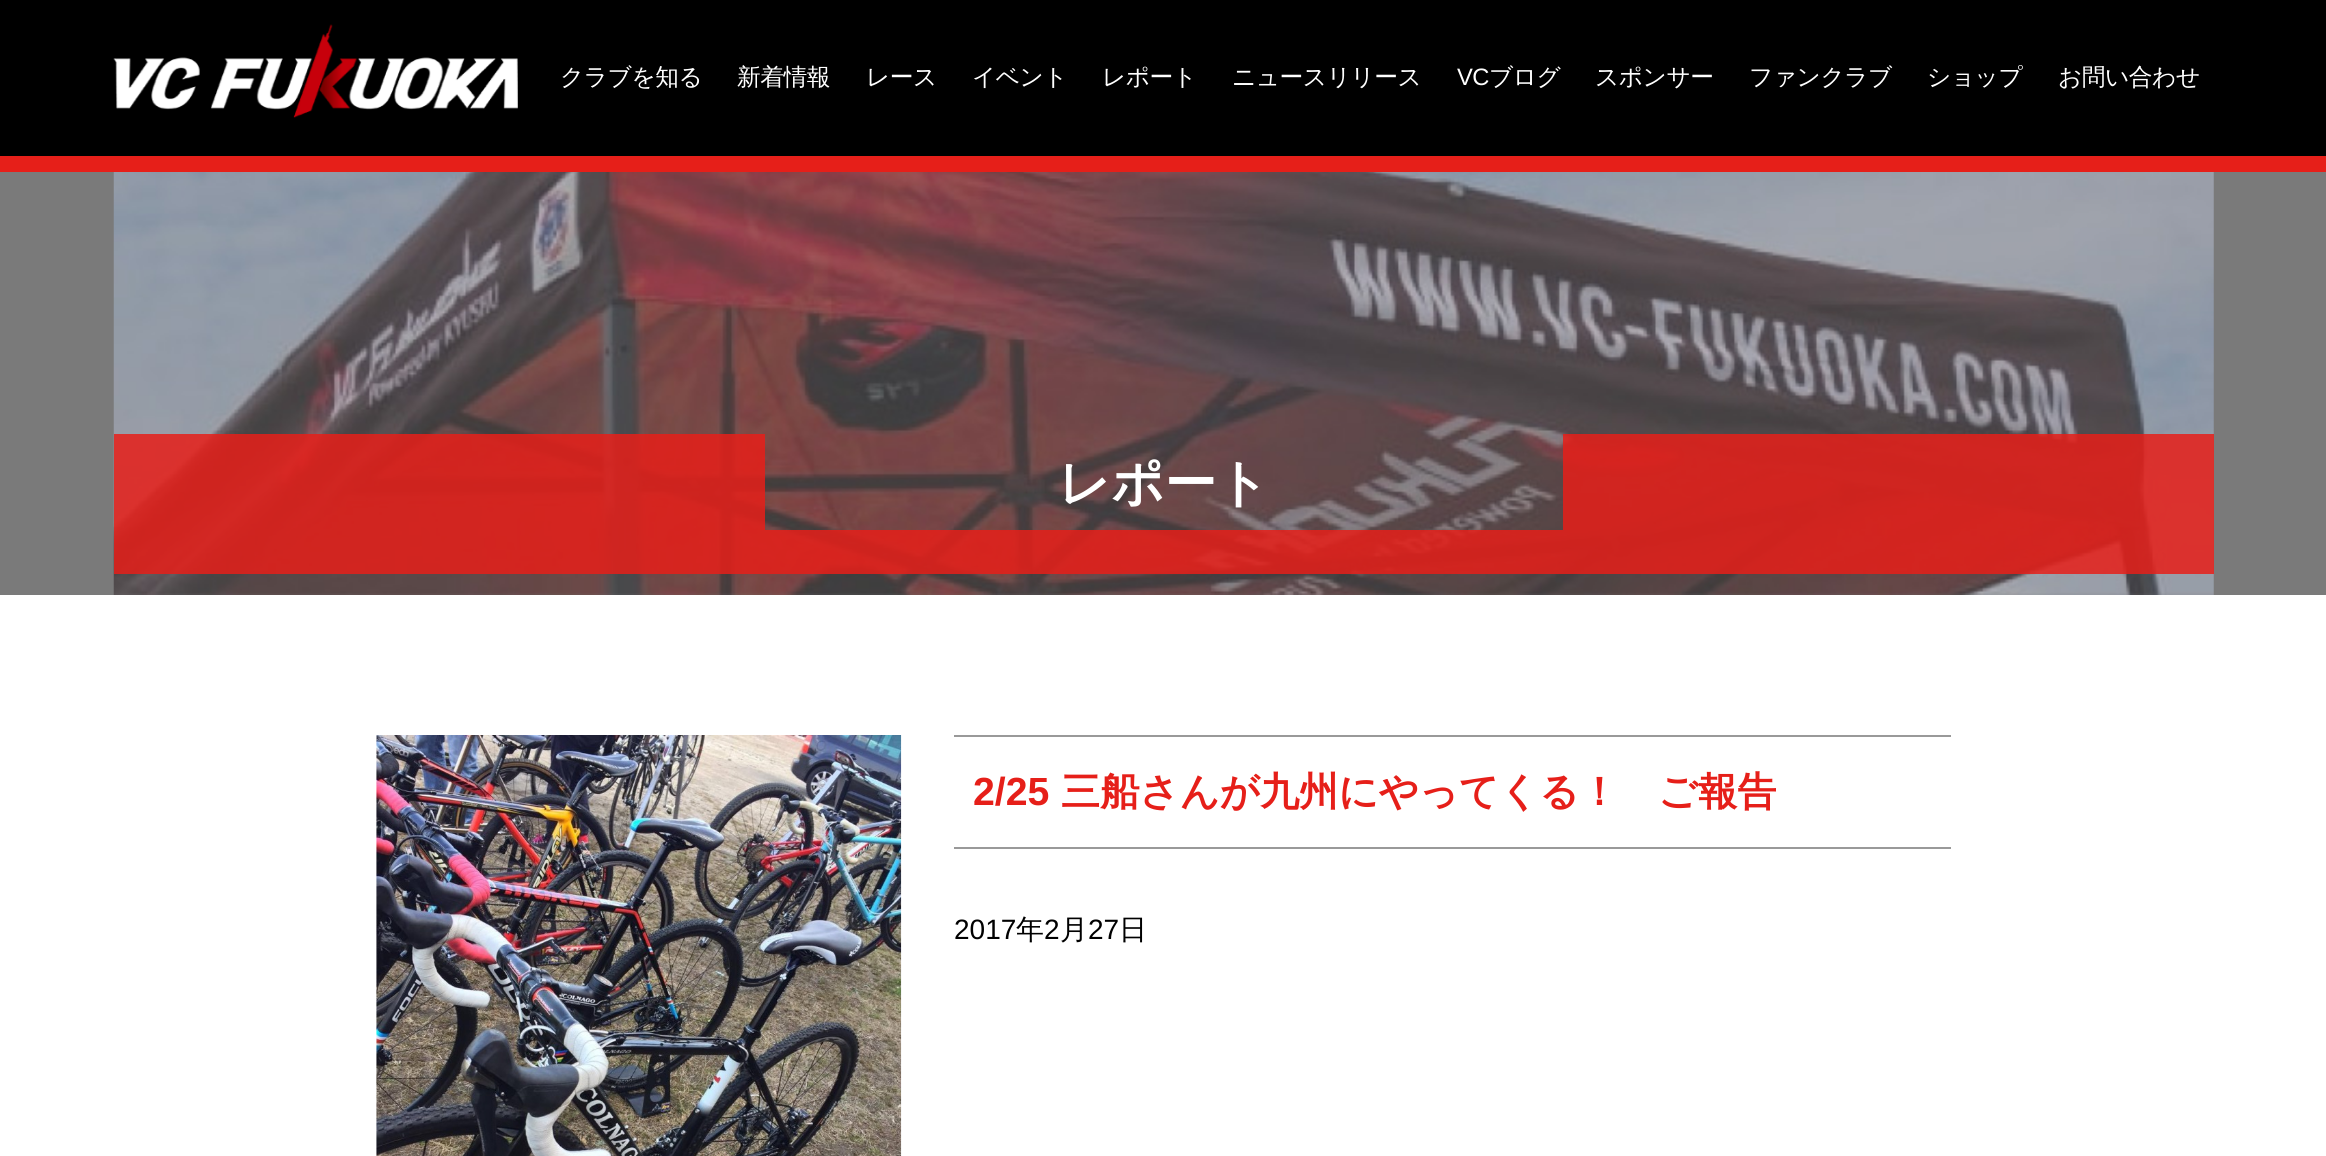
#include <cairo.h>
#include <math.h>
#include <stddef.h>

typedef struct { const char *family; double size; int italic, bold; unsigned color; } style_t;
static cairo_t *ctx;

static void ink(unsigned color) {
    cairo_set_source_rgb(ctx, (color >> 16) / 255.0, (color >> 8 & 255) / 255.0, (color & 255) / 255.0);
}

static void write(double x, double y, const char *s, const style_t *st) {
    cairo_select_font_face(ctx, st->family, st->italic ? CAIRO_FONT_SLANT_ITALIC : CAIRO_FONT_SLANT_NORMAL,
        st->bold ? CAIRO_FONT_WEIGHT_BOLD : CAIRO_FONT_WEIGHT_NORMAL);
    cairo_set_font_size(ctx, st->size);
    ink(st->color);
    cairo_move_to(ctx, x, y);
    cairo_show_text(ctx, s);
}

static void write_spaced(double x, double y, const char *s, double letter, double word) {
    cairo_move_to(ctx, x, y);
    while (*s) {
        char ch[5] = {0};
        int n = 0;
        do ch[n++] = *s++; while ((*s & 0xC0) == 0x80);
        cairo_show_text(ctx, ch);
        cairo_rel_move_to(ctx, letter + word * (*ch == ' '), 0);
    }
}

static void block(double x, double y, double w, double h, unsigned color) {
    ink(color);
    cairo_rectangle(ctx, x, y, w, h);
    cairo_fill(ctx);
}

static void paste(const char *path, double x, double y, double w, double h) {
    cairo_surface_t *image = cairo_image_surface_create_from_png(path);
    cairo_save(ctx);
    cairo_set_source_surface(ctx, image, x, y);
    cairo_rectangle(ctx, x, y, w, h);
    cairo_fill(ctx);
    cairo_restore(ctx);
    cairo_surface_destroy(image);
}

static const style_t s1 = {"WenQuanYi Zen Hei", 52, 0, 1, 0xffffff};
static const style_t s2 = {"Liberation Sans", 39.25, 0, 1, 0xe61f19};
static const style_t s3 = {"WenQuanYi Zen Hei", 39.25, 0, 1, 0xe61f19};
static const style_t s4 = {"Liberation Sans", 28, 0, 0, 0x000000};
static const style_t s5 = {"WenQuanYi Zen Hei Medium", 28, 0, 0, 0x000000};

int main(void) {
    cairo_surface_t *surface = cairo_image_surface_create(CAIRO_FORMAT_RGB24, 2326, 1156);
    ctx = cairo_create(surface);
    cairo_font_options_t *options = cairo_font_options_create();
    cairo_font_options_set_hint_metrics(options, CAIRO_HINT_METRICS_OFF);
    cairo_font_options_set_hint_style(options, CAIRO_HINT_STYLE_NONE);
    cairo_set_font_options(ctx, options);
    cairo_set_miter_limit(ctx, 4);
    ink(0xffffff);
    cairo_paint(ctx);
    block(0, 0, 2326, 156, 0x000000);
    block(0, 156, 2326, 16, 0xe61f19);
    paste("pic1.png", 113, 24, 405, 94);
    cairo_select_font_face(ctx, "WenQuanYi Zen Hei Medium", CAIRO_FONT_SLANT_NORMAL, CAIRO_FONT_WEIGHT_NORMAL);
    cairo_set_font_size(ctx, 23.75);
    ink(0xffffff);
    write_spaced(560, 85, "クラブを知る", -0.5, 0);
    write_spaced(737, 85, "新着情報", -0.5, 0);
    write_spaced(866, 85, "レース", -0.5, 0);
    write_spaced(972, 85, "イベント", -0.5, 0);
    write_spaced(1102, 85, "レポート", -0.5, 0);
    write_spaced(1232, 85, "ニュースリリース", -0.5, 0);
    cairo_select_font_face(ctx, "Liberation Sans", CAIRO_FONT_SLANT_NORMAL, CAIRO_FONT_WEIGHT_NORMAL);
    write_spaced(1457, 85, "VC", -0.5, 0);
    cairo_select_font_face(ctx, "WenQuanYi Zen Hei Medium", CAIRO_FONT_SLANT_NORMAL, CAIRO_FONT_WEIGHT_NORMAL);
    write_spaced(1489, 85, "ブログ", -0.5, 0);
    write_spaced(1595, 85, "スポンサー", -0.5, 0);
    write_spaced(1749, 85, "ファンクラブ", -0.5, 0);
    write_spaced(1927, 85, "ショップ", -0.5, 0);
    write_spaced(2058, 85, "お問い合わせ", -0.5, 0);
    block(0, 172, 2326, 423, 0x7a7a7a);
    paste("pic2.png", 113, 172, 2101, 423);
    cairo_set_source_rgba(ctx, 0.902, 0.122, 0.098, 0.85);
    cairo_rectangle(ctx, 114, 530, 2100, 44);
    cairo_fill(ctx);
    cairo_rectangle(ctx, 114, 434, 651, 96);
    cairo_fill(ctx);
    cairo_rectangle(ctx, 1563, 434, 651, 96);
    cairo_fill(ctx);
    write(1058, 501, "レポート", &s1);
    paste("pic3.png", 376, 735, 526, 421);
    block(954, 735, 997, 2, 0x999999);
    block(954, 847, 997, 2, 0x999999);
    write(973, 805, "2/25", &s2);
    write(1061, 805, "三船さんが九州にやってくる！　ご報告", &s3);
    write(954, 939, "2017", &s4);
    write(1016, 939, "年", &s5);
    write(1044, 939, "2", &s4);
    write(1060, 939, "月", &s5);
    write(1088, 939, "27", &s4);
    write(1119, 939, "日", &s5);
    cairo_surface_write_to_png(surface, "screenshot.png");
    cairo_font_options_destroy(options);
    cairo_destroy(ctx);
    cairo_surface_destroy(surface);
    return 0;
}
